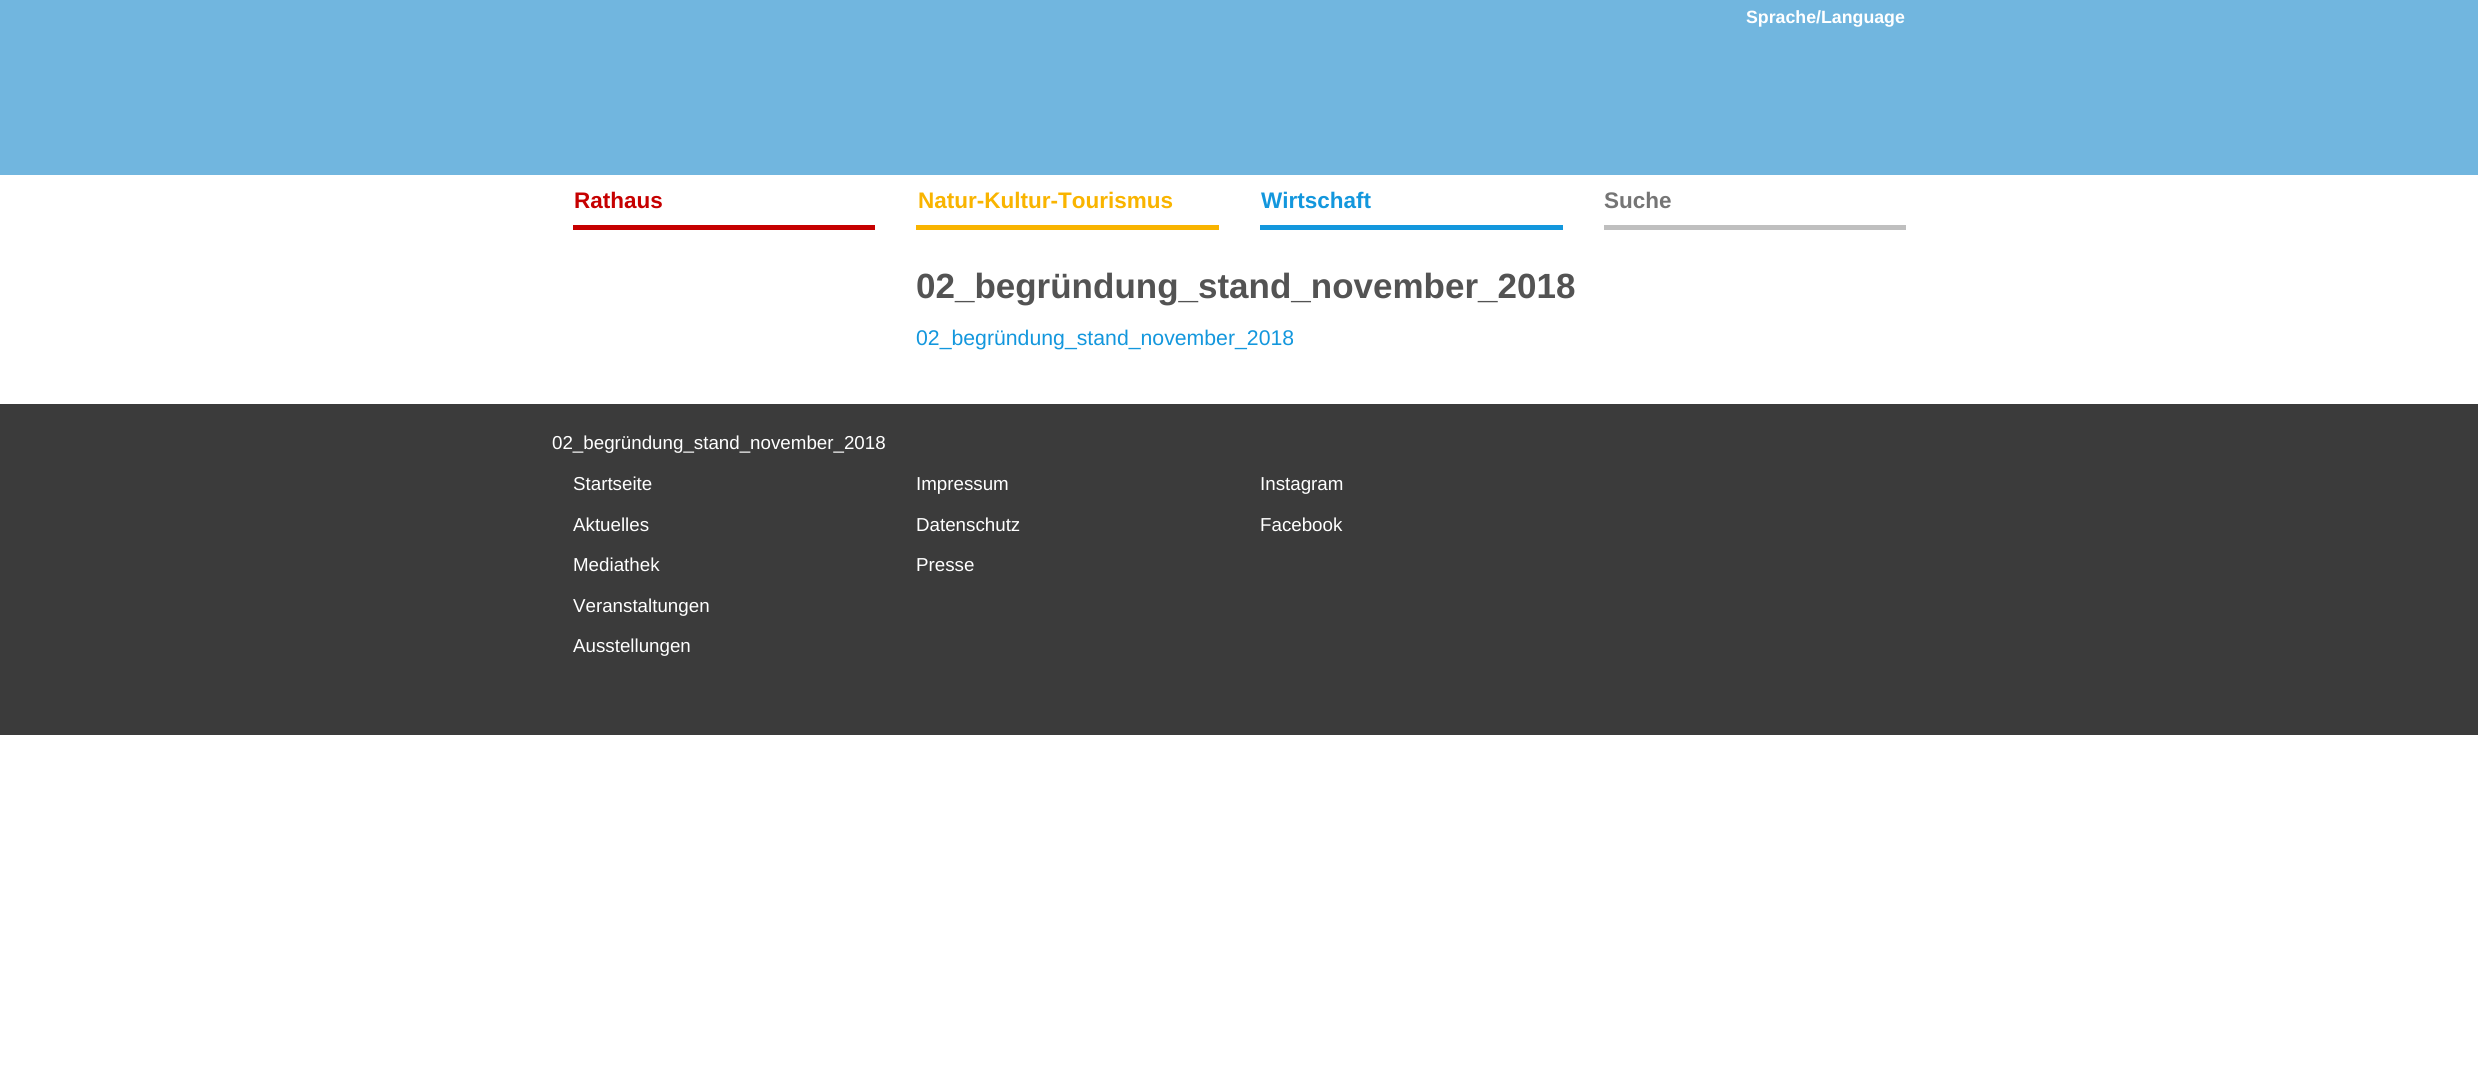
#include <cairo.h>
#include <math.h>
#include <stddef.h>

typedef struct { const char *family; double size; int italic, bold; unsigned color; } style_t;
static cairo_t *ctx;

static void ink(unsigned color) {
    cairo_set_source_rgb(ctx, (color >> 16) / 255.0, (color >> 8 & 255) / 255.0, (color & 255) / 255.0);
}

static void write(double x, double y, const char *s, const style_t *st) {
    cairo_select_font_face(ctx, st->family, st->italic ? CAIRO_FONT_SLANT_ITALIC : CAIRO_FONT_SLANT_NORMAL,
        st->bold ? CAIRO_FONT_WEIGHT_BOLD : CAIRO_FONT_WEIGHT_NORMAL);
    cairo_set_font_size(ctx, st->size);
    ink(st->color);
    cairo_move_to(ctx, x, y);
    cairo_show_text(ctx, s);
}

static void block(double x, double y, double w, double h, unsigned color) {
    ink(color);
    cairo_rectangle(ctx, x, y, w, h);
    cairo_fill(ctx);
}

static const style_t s1 = {"Liberation Sans", 17.75, 0, 1, 0xffffff};
static const style_t s2 = {"Liberation Sans", 22.5, 0, 1, 0xc60000};
static const style_t s3 = {"Liberation Sans", 22.5, 0, 1, 0xf9b400};
static const style_t s4 = {"Liberation Sans", 22.5, 0, 1, 0x1397dd};
static const style_t s5 = {"Liberation Sans", 22.5, 0, 1, 0x757575};
static const style_t s6 = {"Liberation Sans", 35, 0, 1, 0x535353};
static const style_t s7 = {"Liberation Sans", 21.25, 0, 0, 0x1397dd};
static const style_t s8 = {"Liberation Sans", 18.75, 0, 0, 0xffffff};

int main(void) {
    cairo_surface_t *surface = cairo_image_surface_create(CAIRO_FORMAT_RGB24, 2478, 1085);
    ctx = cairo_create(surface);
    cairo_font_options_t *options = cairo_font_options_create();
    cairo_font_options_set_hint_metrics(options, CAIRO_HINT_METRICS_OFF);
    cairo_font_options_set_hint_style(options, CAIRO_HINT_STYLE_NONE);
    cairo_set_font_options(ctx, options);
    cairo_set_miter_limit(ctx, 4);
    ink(0xffffff);
    cairo_paint(ctx);
    block(0, 0, 2478, 175, 0x71b6df);
    write(1746, 23, "Sprache/Language", &s1);
    write(574, 208, "Rathaus", &s2);
    write(918, 208, "Natur-Kultur-Tourismus", &s3);
    write(1261, 208, "Wirtschaft", &s4);
    write(1604, 208, "Suche", &s5);
    block(573, 225, 302, 5, 0xc60000);
    block(916, 225, 303, 5, 0xf9b400);
    block(1260, 225, 303, 5, 0x1397dd);
    block(1604, 225, 302, 5, 0xbfbfbf);
    write(916, 298, "02_begründung_stand_november_2018", &s6);
    write(916, 345, "02_begründung_stand_november_2018", &s7);
    block(0, 404, 2478, 331, 0x3b3b3b);
    write(552, 449, "02_begründung_stand_november_2018", &s8);
    write(573, 490, "Startseite", &s8);
    write(573, 531, "Aktuelles", &s8);
    write(573, 571, "Mediathek", &s8);
    write(573, 612, "Veranstaltungen", &s8);
    write(573, 652, "Ausstellungen", &s8);
    write(916, 490, "Impressum", &s8);
    write(916, 531, "Datenschutz", &s8);
    write(916, 571, "Presse", &s8);
    write(1260, 490, "Instagram", &s8);
    write(1260, 531, "Facebook", &s8);
    cairo_surface_write_to_png(surface, "screenshot.png");
    cairo_font_options_destroy(options);
    cairo_destroy(ctx);
    cairo_surface_destroy(surface);
    return 0;
}
